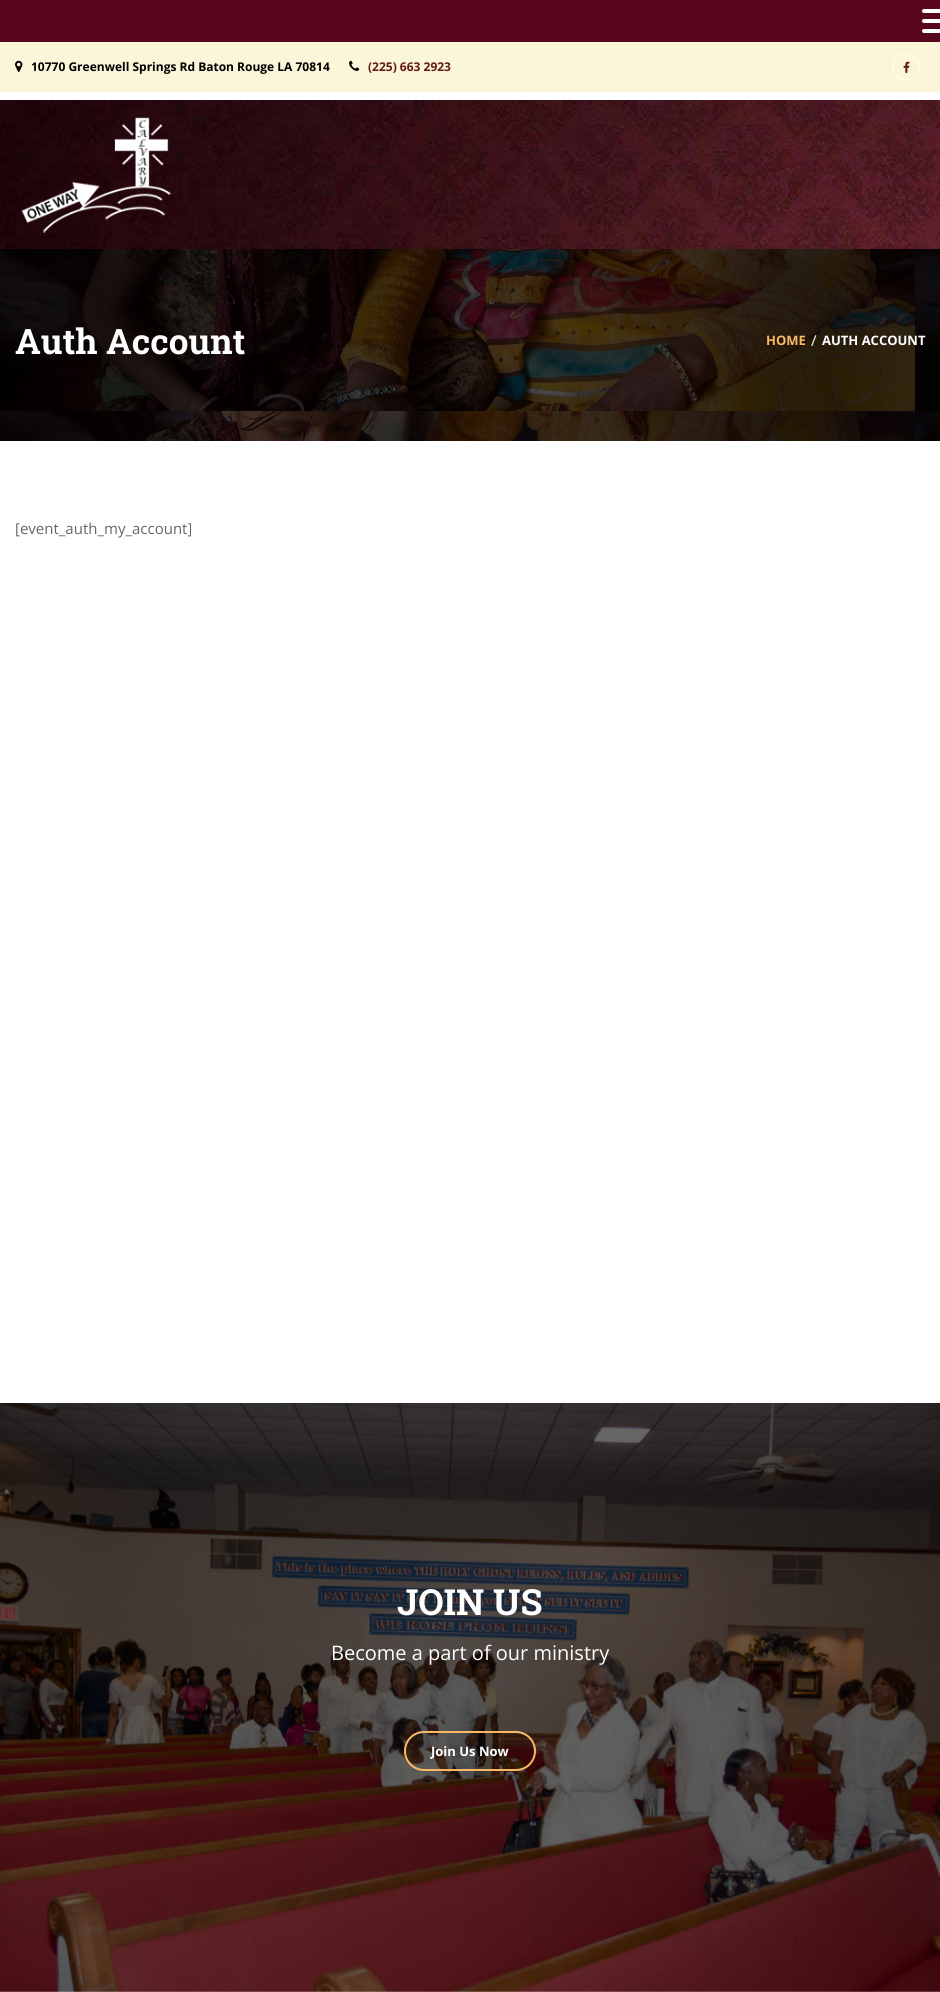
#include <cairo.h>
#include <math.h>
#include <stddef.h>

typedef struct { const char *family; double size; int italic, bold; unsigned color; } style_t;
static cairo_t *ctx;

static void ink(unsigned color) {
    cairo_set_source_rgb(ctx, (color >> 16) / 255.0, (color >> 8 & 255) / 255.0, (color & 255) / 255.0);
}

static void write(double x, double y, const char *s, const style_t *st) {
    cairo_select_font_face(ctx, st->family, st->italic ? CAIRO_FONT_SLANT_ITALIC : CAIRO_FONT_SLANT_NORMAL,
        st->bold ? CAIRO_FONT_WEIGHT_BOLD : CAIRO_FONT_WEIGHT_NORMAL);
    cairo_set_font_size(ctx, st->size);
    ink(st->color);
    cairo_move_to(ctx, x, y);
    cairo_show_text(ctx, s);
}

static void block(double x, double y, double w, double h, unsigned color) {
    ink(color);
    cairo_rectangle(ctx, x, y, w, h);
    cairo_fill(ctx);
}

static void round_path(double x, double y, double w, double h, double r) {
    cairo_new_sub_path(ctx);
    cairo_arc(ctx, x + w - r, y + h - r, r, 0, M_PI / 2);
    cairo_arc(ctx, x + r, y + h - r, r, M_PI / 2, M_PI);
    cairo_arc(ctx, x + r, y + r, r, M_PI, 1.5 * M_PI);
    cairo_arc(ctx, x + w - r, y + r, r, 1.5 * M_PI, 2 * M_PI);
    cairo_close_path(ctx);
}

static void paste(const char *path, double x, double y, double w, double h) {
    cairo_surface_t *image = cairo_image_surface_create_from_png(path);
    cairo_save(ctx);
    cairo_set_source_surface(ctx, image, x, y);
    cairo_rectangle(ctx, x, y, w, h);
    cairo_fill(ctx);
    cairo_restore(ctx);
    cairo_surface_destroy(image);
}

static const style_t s1 = {"Open Sans", 12, 0, 1, 0x000000};
static const style_t s2 = {"Open Sans", 12, 0, 1, 0x631717};
static const style_t s3 = {"Roboto Slab", 35, 0, 1, 0xffffff};
static const style_t s4 = {"Open Sans", 13, 0, 1, 0xf8b864};
static const style_t s5 = {"Open Sans", 15, 0, 0, 0xffffff};
static const style_t s6 = {"Open Sans", 13, 0, 1, 0xffffff};
static const style_t s7 = {"Open Sans", 15, 0, 0, 0x666666};
static const style_t s8 = {"Roboto Slab", 36, 0, 1, 0xffffff};
static const style_t s9 = {"Open Sans", 20, 0, 0, 0xffffff};

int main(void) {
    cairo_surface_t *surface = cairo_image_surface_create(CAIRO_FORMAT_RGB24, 940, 1992);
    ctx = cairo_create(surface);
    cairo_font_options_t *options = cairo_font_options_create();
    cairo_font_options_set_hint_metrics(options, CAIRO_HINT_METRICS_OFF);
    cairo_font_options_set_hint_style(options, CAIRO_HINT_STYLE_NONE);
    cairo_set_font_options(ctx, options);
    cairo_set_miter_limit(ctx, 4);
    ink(0xffffff);
    cairo_paint(ctx);
    block(0, 0, 940, 42, 0x59061f);
    ink(0xffffff);
    round_path(922, 9, 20, 4, 2);
    cairo_fill(ctx);
    round_path(922, 19, 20, 4, 2);
    cairo_fill(ctx);
    round_path(922, 29, 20, 4, 2);
    cairo_fill(ctx);
    block(0, 42, 940, 50, 0xfbf6d9);
    paste("pic1.png", 15, 60, 8, 12);
    write(31, 71, "10770 Greenwell Springs Rd Baton Rouge LA 70814", &s1);
    paste("pic2.png", 349, 60, 11, 11);
    write(368, 71, "(225) 663 2923", &s2);
    cairo_new_path(ctx);
    cairo_arc(ctx, 906, 67, 13, 0, 2 * M_PI);
    ink(0xfdfae8);
    cairo_stroke(ctx);
    paste("pic3.png", 903, 61, 7, 12);
    paste("pic4.png", 0, 100, 940, 149);
    paste("pic5.png", 21, 117, 150, 117);
    paste("pic6.png", 0, 249, 940, 192);
    write(15, 354, "Auth Account", &s3);
    write(766, 345, "HOME", &s4);
    write(811, 346, "/", &s5);
    write(822, 345, "AUTH ACCOUNT", &s6);
    write(15, 534, "[event_auth_my_account]", &s7);
    paste("pic7.png", 0, 1403, 940, 589);
    write(397, 1615, "JOIN US", &s8);
    write(331, 1660, "Become a part of our ministry", &s9);
    round_path(405, 1732, 130, 38, 19);
    ink(0xf8b864);
    cairo_stroke(ctx);
    write(431, 1756, "Join Us Now", &s6);
    cairo_surface_write_to_png(surface, "screenshot.png");
    cairo_font_options_destroy(options);
    cairo_destroy(ctx);
    cairo_surface_destroy(surface);
    return 0;
}
